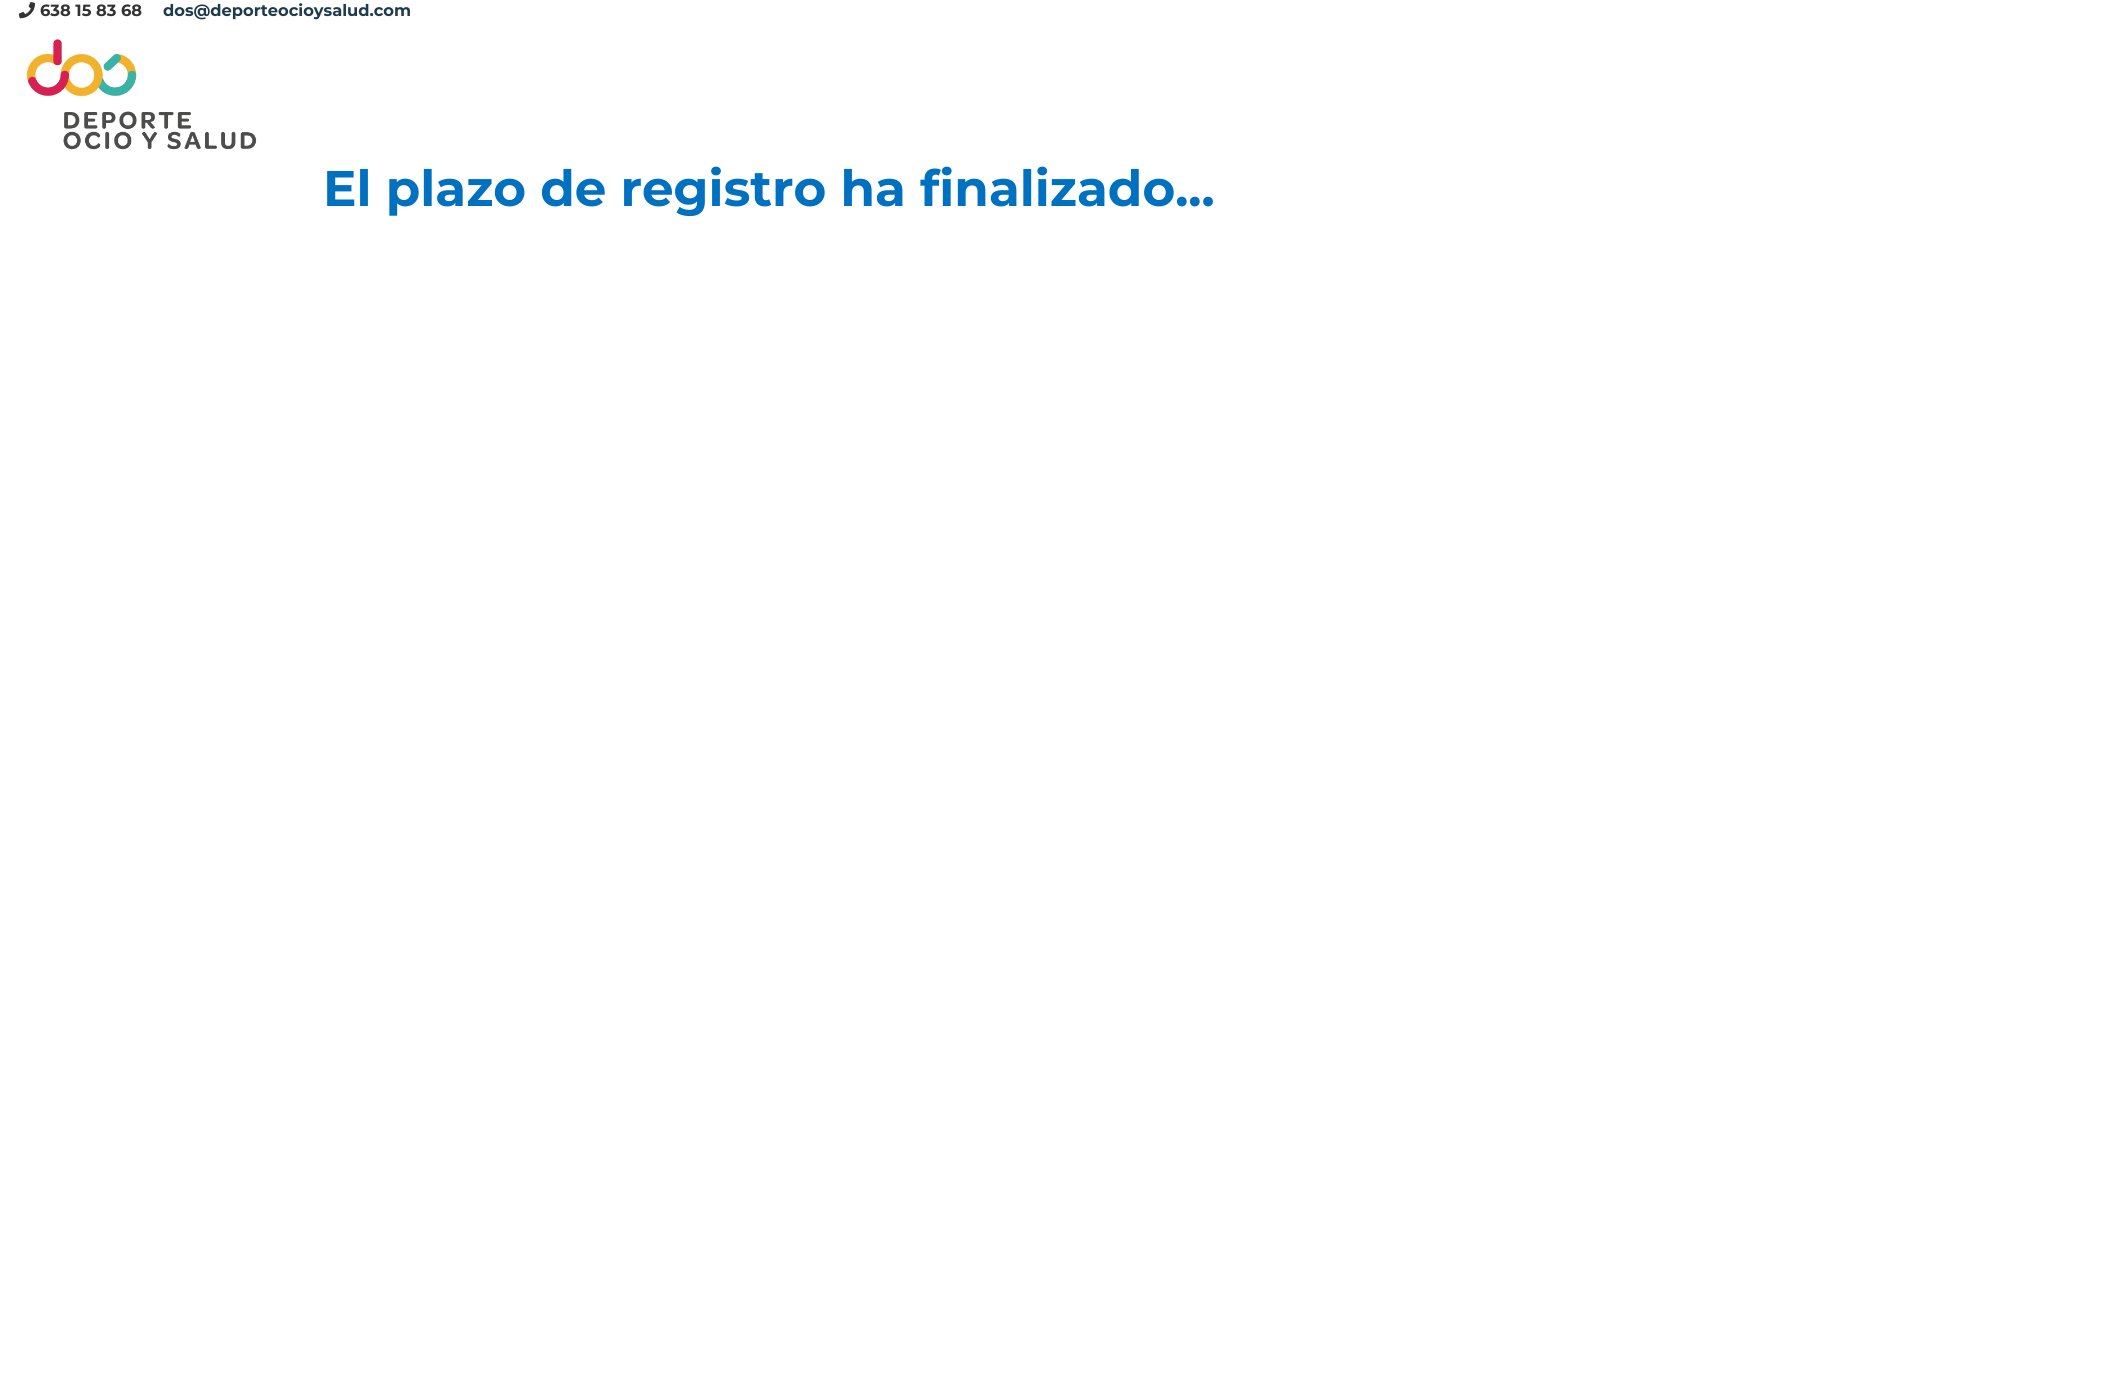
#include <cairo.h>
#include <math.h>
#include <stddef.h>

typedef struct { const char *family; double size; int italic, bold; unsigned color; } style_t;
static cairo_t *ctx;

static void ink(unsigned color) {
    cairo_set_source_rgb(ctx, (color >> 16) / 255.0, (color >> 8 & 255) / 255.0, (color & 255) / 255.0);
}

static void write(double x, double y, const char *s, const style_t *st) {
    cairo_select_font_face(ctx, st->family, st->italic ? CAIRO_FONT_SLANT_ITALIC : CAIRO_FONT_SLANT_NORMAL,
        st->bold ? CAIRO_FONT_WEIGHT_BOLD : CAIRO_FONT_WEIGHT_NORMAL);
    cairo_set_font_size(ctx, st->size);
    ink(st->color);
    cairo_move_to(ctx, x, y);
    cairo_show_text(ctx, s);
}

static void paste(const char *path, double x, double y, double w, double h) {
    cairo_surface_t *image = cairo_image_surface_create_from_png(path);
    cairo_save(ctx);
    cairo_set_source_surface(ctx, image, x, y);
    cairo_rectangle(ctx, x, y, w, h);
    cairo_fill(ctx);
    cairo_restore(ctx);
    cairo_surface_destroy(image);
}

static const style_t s1 = {"Montserrat Thin", 16.25, 0, 0, 0x333333};
static const style_t s2 = {"Montserrat Thin", 16.25, 0, 0, 0x1e3a4d};
static const style_t s3 = {"Montserrat Thin", 50, 0, 0, 0x0070c0};

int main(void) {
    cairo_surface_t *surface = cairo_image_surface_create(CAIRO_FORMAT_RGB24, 2107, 1392);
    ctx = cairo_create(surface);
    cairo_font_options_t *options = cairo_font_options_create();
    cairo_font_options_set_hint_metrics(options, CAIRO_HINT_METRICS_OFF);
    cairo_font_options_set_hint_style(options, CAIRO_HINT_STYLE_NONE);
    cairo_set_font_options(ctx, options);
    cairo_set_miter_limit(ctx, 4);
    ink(0xffffff);
    cairo_paint(ctx);
    paste("pic1.png", 18, 2, 17, 17);
    write(40, 16, "638 15 83 68", &s1);
    write(163, 16, "dos@deporteocioysalud.com", &s2);
    paste("pic2.png", 26, 39, 231, 111);
    write(323, 206, "El plazo de registro ha finalizado...", &s3);
    cairo_surface_write_to_png(surface, "screenshot.png");
    cairo_font_options_destroy(options);
    cairo_destroy(ctx);
    cairo_surface_destroy(surface);
    return 0;
}
